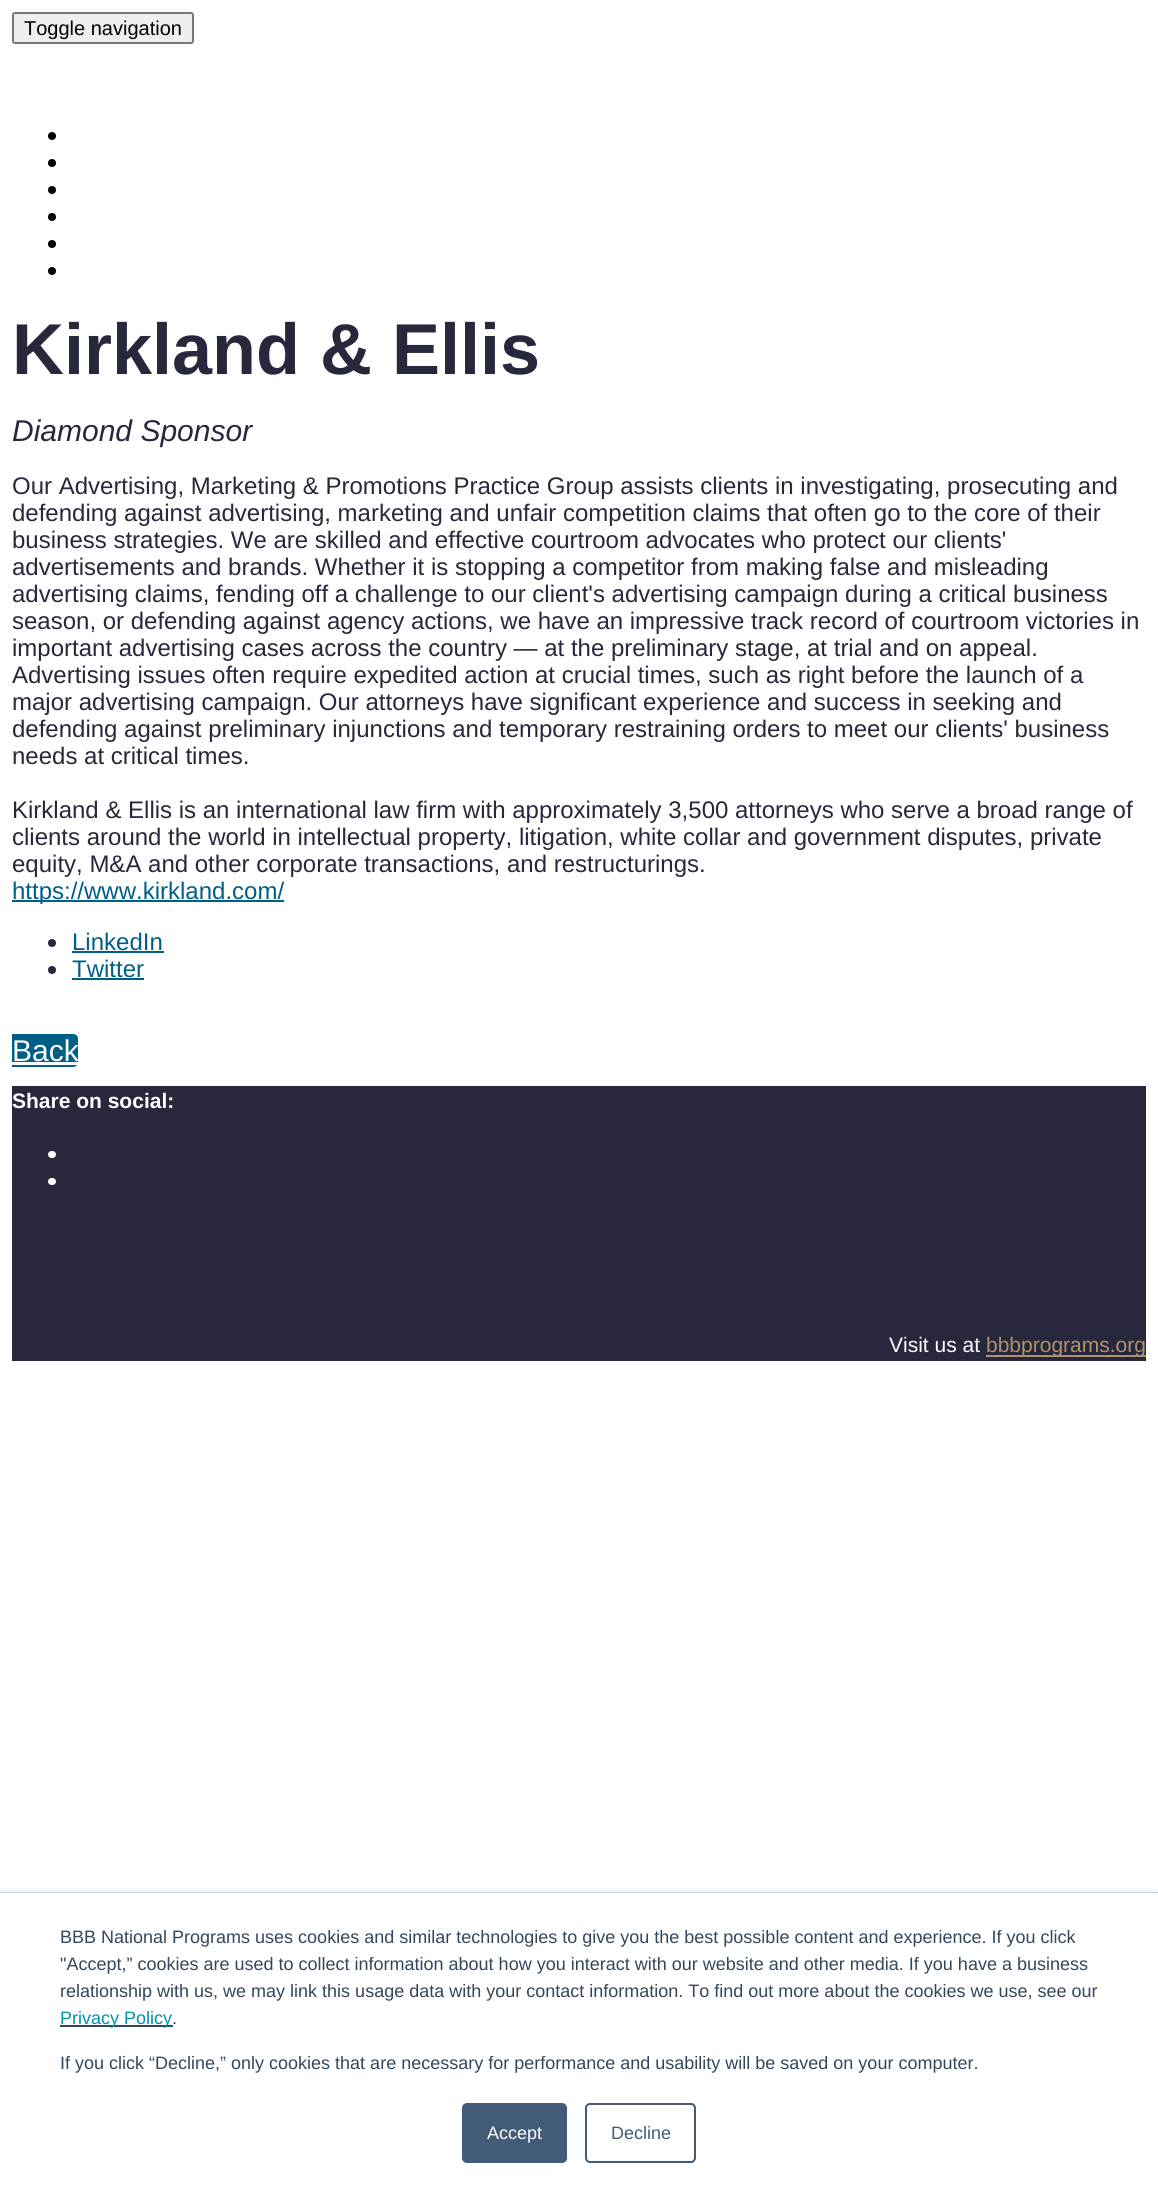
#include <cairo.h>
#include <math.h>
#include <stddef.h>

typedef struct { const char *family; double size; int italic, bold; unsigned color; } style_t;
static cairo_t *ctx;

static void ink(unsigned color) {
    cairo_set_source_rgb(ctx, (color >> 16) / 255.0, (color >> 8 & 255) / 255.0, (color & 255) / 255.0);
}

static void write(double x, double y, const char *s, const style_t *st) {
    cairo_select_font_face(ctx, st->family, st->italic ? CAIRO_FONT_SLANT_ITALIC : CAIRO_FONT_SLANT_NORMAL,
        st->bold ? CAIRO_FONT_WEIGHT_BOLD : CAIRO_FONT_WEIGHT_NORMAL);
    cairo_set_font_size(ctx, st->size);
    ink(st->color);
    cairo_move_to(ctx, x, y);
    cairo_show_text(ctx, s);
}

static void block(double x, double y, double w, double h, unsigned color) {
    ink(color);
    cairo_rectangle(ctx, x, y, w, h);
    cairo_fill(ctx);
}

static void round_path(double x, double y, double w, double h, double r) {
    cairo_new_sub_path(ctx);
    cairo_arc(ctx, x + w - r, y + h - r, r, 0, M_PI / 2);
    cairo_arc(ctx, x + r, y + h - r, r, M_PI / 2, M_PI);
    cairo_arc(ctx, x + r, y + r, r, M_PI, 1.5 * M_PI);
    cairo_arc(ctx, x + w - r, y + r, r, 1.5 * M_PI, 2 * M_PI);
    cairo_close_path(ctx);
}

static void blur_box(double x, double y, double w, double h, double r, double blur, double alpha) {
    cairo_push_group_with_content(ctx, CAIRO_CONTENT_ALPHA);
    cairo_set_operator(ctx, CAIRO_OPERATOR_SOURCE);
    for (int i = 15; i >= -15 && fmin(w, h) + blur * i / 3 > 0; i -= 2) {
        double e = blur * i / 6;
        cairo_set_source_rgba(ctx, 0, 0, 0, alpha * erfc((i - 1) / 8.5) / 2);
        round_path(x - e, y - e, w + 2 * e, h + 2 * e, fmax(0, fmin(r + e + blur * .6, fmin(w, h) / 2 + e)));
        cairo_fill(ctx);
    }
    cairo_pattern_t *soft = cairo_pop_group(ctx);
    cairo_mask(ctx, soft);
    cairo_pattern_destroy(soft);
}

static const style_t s1 = {"Liberation Sans", 20, 0, 0, 0x000000};
static const style_t s2 = {"Liberation Sans", 72, 0, 1, 0x28283c};
static const style_t s3 = {"Liberation Sans", 30, 1, 0, 0x28283c};
static const style_t s4 = {"Liberation Sans", 24, 0, 0, 0x28283c};
static const style_t s5 = {"Liberation Sans", 24, 0, 0, 0x005f87};
static const style_t s6 = {"Liberation Sans", 30, 0, 0, 0xffffff};
static const style_t s7 = {"Liberation Sans", 21, 0, 1, 0xffffff};
static const style_t s8 = {"Liberation Sans", 21, 0, 0, 0xffffff};
static const style_t s9 = {"Liberation Sans", 21, 0, 0, 0xaf916e};
static const style_t s10 = {"Liberation Sans", 18, 0, 0, 0x33475b};
static const style_t s11 = {"Liberation Sans", 18, 0, 0, 0x0091ae};
static const style_t s12 = {"Liberation Sans", 18, 0, 0, 0xffffff};
static const style_t s13 = {"Liberation Sans", 18, 0, 0, 0x425b76};

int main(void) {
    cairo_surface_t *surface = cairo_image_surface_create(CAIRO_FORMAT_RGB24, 1158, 2202);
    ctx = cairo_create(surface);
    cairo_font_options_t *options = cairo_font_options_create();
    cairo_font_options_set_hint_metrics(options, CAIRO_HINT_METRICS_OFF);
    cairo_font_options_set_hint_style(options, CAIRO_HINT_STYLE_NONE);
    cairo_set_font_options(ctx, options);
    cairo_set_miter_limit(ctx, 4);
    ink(0xffffff);
    cairo_paint(ctx);
    ink(0xefefef);
    round_path(13, 13, 180, 30, 2);
    cairo_fill_preserve(ctx);
    ink(0x767676);
    cairo_stroke(ctx);
    write(24, 35, "Toggle navigation", &s1);
    cairo_new_path(ctx);
    cairo_arc(ctx, 52, 136, 4, 0, 2 * M_PI);
    cairo_fill(ctx);
    cairo_arc(ctx, 52, 163, 4, 0, 2 * M_PI);
    cairo_fill(ctx);
    cairo_arc(ctx, 52, 190, 4, 0, 2 * M_PI);
    cairo_fill(ctx);
    cairo_arc(ctx, 52, 217, 4, 0, 2 * M_PI);
    cairo_fill(ctx);
    cairo_arc(ctx, 52, 244, 4, 0, 2 * M_PI);
    cairo_fill(ctx);
    cairo_arc(ctx, 52, 271, 4, 0, 2 * M_PI);
    cairo_fill(ctx);
    write(12, 374, "Kirkland & Ellis", &s2);
    write(12, 441, "Diamond Sponsor", &s3);
    write(12, 494, "Our Advertising, Marketing & Promotions Practice Group assists clients in investigating, prosecuting and", &s4);
    write(12, 521, "defending against advertising, marketing and unfair competition claims that often go to the core of their", &s4);
    write(12, 548, "business strategies. We are skilled and effective courtroom advocates who protect our clients'", &s4);
    write(12, 575, "advertisements and brands. Whether it is stopping a competitor from making false and misleading", &s4);
    write(12, 602, "advertising claims, fending off a challenge to our client's advertising campaign during a critical business", &s4);
    write(12, 629, "season, or defending against agency actions, we have an impressive track record of courtroom victories in", &s4);
    write(12, 656, "important advertising cases across the country — at the preliminary stage, at trial and on appeal.", &s4);
    write(12, 683, "Advertising issues often require expedited action at crucial times, such as right before the launch of a", &s4);
    write(12, 710, "major advertising campaign. Our attorneys have significant experience and success in seeking and", &s4);
    write(12, 737, "defending against preliminary injunctions and temporary restraining orders to meet our clients' business", &s4);
    write(12, 764, "needs at critical times.", &s4);
    write(12, 818, "Kirkland & Ellis is an international law firm with approximately 3,500 attorneys who serve a broad range of", &s4);
    write(12, 845, "clients around the world in intellectual property, litigation, white collar and government disputes, private", &s4);
    write(12, 872, "equity, M&A and other corporate transactions, and restructurings.", &s4);
    block(12, 900, 272, 2, 0x005f87);
    write(12, 899, "https://www.kirkland.com/", &s5);
    ink(0x28283c);
    cairo_new_path(ctx);
    cairo_arc(ctx, 52, 943, 4, 0, 2 * M_PI);
    cairo_fill(ctx);
    write(72, 950, "LinkedIn", &s5);
    block(72, 951, 92, 2, 0x005f87);
    ink(0x28283c);
    cairo_new_path(ctx);
    cairo_arc(ctx, 52, 970, 4, 0, 2 * M_PI);
    cairo_fill(ctx);
    write(72, 977, "Twitter", &s5);
    block(72, 978, 72, 2, 0x005f87);
    cairo_new_path(ctx);
    cairo_move_to(ctx, 12, 1034);
    cairo_line_to(ctx, 73, 1034);
    cairo_curve_to(ctx, 76, 1034, 78, 1036, 78, 1039);
    cairo_line_to(ctx, 78, 1062);
    cairo_curve_to(ctx, 78, 1065, 76, 1067, 73, 1067);
    cairo_line_to(ctx, 12, 1067);
    cairo_close_path(ctx);
    cairo_fill(ctx);
    write(12, 1061, "Back", &s6);
    block(12, 1062, 66, 3, 0xffffff);
    block(12, 1086, 1134, 275, 0x28283c);
    write(12, 1108, "Share on social:", &s7);
    round_path(48, 1151, 8, 7, 3.5);
    cairo_fill(ctx);
    round_path(48, 1178, 8, 7, 3.5);
    cairo_fill(ctx);
    write(889, 1352, "Visit us at", &s8);
    block(986, 1355, 160, 2, 0xaf916e);
    write(986, 1352, "bbbprograms.org", &s9);
    ink(0xeaf0f6);
    blur_box(0, 1890, 1158, 311, 0, 2, 1);
    block(0, 1892, 1158, 1, 0xcbd6e2);
    block(0, 1893, 1158, 309, 0xffffff);
    write(60, 1943, "BBB National Programs uses cookies and similar technologies to give you the best possible content and experience. If you click", &s10);
    write(60, 1970, "\"Accept,” cookies are used to collect information about how you interact with our website and other media. If you have a business", &s10);
    write(60, 1997, "relationship with us, we may link this usage data with your contact information. To find out more about the cookies we use, see our", &s10);
    block(60, 2025, 113, 2, 0x33475b);
    write(60, 2024, "Privacy Policy", &s11);
    write(172, 2024, ".", &s10);
    write(60, 2069, "If you click “Decline,” only cookies that are necessary for performance and usability will be saved on your computer.", &s10);
    ink(0x425b76);
    round_path(463, 2104, 103, 58, 4);
    cairo_fill_preserve(ctx);
    cairo_stroke(ctx);
    write(487, 2139, "Accept", &s12);
    round_path(586, 2104, 109, 58, 4);
    ink(0x425b76);
    cairo_stroke(ctx);
    write(611, 2139, "Decline", &s13);
    cairo_surface_write_to_png(surface, "screenshot.png");
    cairo_font_options_destroy(options);
    cairo_destroy(ctx);
    cairo_surface_destroy(surface);
    return 0;
}
